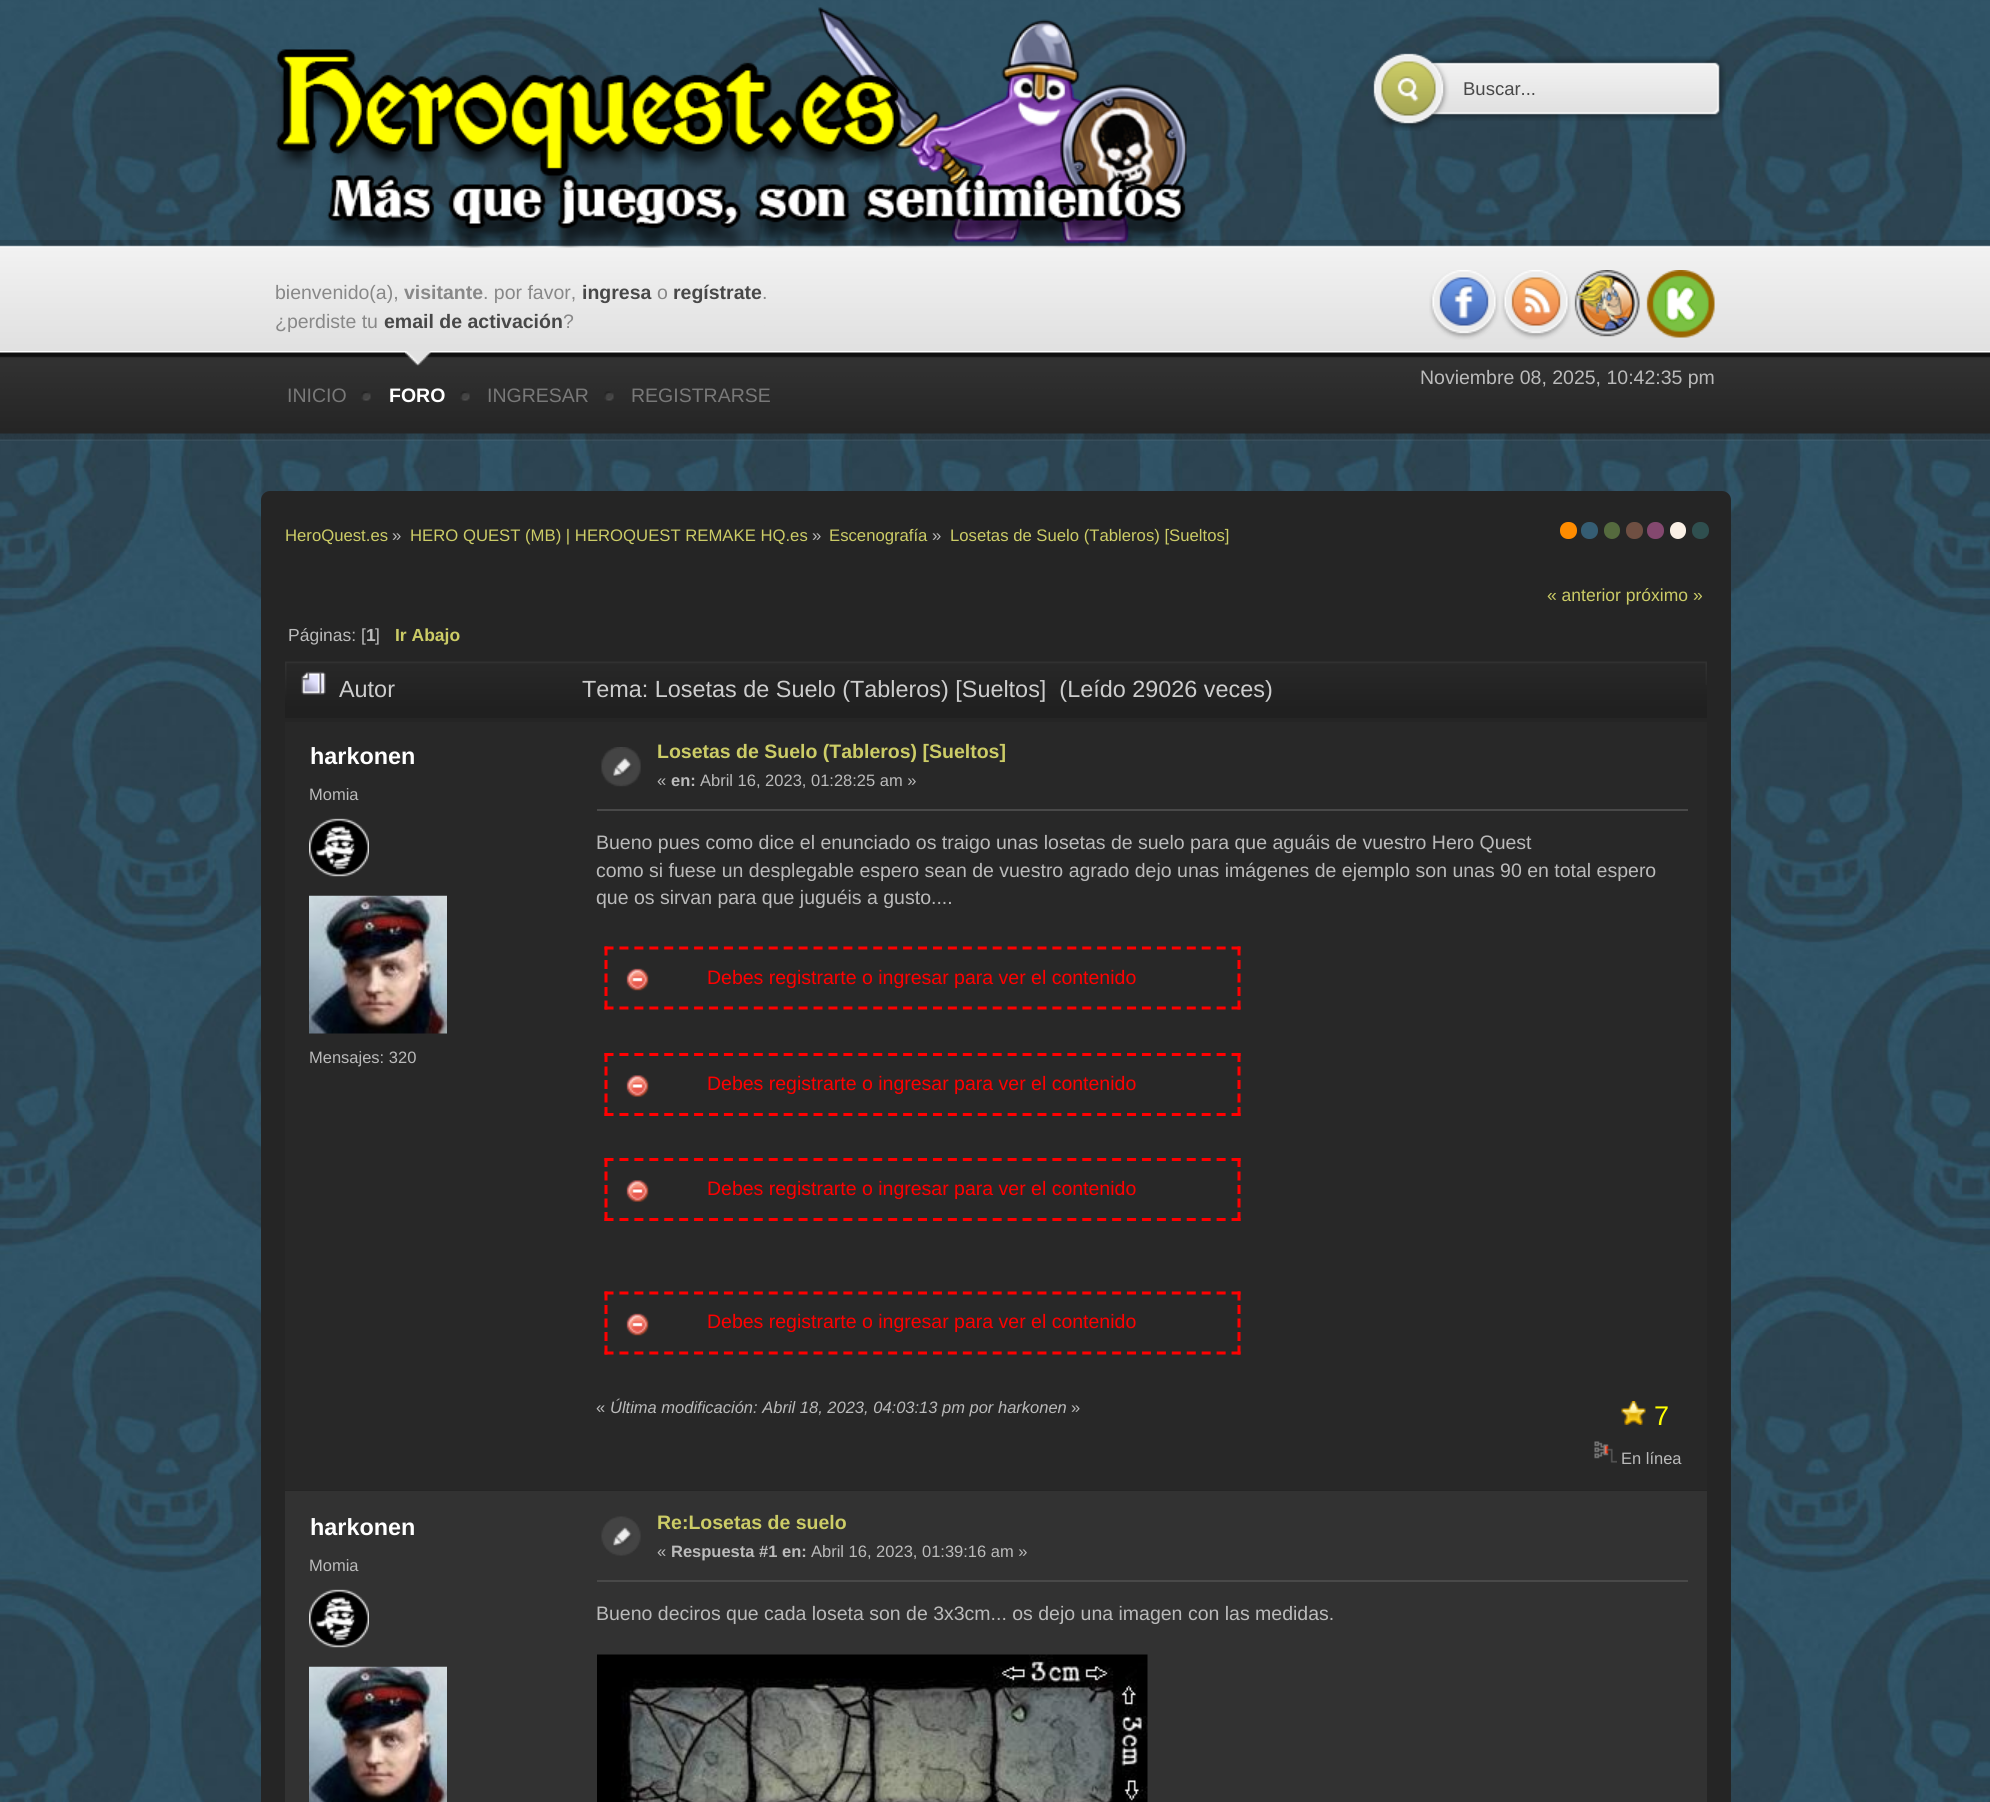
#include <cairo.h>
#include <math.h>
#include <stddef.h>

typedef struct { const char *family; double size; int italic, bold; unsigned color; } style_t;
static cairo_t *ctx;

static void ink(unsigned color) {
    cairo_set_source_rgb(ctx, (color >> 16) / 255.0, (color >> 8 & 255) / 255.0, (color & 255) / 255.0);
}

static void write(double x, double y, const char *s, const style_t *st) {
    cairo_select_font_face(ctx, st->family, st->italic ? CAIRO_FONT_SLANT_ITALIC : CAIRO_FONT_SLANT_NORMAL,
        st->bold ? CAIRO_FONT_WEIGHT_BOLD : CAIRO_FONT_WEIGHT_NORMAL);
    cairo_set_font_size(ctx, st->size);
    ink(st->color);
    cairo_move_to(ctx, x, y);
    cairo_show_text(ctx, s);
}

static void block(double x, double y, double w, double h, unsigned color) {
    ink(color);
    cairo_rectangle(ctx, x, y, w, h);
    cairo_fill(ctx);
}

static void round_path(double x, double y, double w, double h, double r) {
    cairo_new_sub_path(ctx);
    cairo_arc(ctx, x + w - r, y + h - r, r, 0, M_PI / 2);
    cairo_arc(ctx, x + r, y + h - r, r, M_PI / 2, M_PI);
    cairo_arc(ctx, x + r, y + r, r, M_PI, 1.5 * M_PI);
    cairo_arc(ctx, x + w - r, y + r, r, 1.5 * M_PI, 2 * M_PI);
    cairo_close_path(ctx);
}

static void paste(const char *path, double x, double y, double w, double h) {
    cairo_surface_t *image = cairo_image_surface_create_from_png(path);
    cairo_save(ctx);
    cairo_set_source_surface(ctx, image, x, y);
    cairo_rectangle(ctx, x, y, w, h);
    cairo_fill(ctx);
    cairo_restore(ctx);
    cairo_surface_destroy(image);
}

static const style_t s1 = {"Liberation Sans", 18.5, 0, 0, 0x484848};
static const style_t s2 = {"Liberation Sans", 19.5, 0, 0, 0x888888};
static const style_t s3 = {"Liberation Sans", 19.5, 0, 1, 0x888888};
static const style_t s4 = {"Liberation Sans", 19.5, 0, 1, 0x484848};
static const style_t s5 = {"Liberation Sans", 19.5, 0, 0, 0xbbbbbb};
static const style_t s6 = {"Liberation Sans", 19.5, 0, 0, 0x787878};
static const style_t s7 = {"Liberation Sans", 19.5, 0, 1, 0xffffff};
static const style_t s8 = {"Liberation Sans", 16.7, 0, 0, 0xcccc66};
static const style_t s9 = {"Liberation Sans", 16.7, 0, 0, 0xbbbbbb};
static const style_t s10 = {"Liberation Sans", 17.5, 0, 0, 0xcccc66};
static const style_t s11 = {"Liberation Sans", 17.5, 0, 0, 0xbbbbbb};
static const style_t s12 = {"Liberation Sans", 17.5, 0, 1, 0xbbbbbb};
static const style_t s13 = {"Liberation Sans", 17.5, 0, 1, 0xcccc66};
static const style_t s14 = {"Liberation Sans", 23.4, 0, 0, 0xcdcdcd};
static const style_t s15 = {"Liberation Sans", 23.4, 0, 1, 0xffffff};
static const style_t s16 = {"Liberation Sans", 16.5, 0, 0, 0xbbbbbb};
static const style_t s17 = {"Liberation Sans", 19.5, 0, 1, 0xcccc66};
static const style_t s18 = {"Liberation Sans", 16.5, 0, 1, 0xbbbbbb};
static const style_t s19 = {"Liberation Sans", 19.5, 0, 0, 0xff0000};
static const style_t s20 = {"Liberation Sans", 16.5, 1, 0, 0xbbbbbb};
static const style_t s21 = {"Liberation Sans", 27, 0, 0, 0xffff00};

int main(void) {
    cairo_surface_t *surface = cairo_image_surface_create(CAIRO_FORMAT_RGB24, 1990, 1802);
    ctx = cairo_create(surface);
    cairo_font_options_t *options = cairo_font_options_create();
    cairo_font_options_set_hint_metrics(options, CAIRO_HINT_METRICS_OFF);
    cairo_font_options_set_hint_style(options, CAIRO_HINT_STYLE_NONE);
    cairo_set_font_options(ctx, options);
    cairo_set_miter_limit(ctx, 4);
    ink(0xffffff);
    cairo_paint(ctx);
    paste("pic1.png", 0, 0, 1990, 1802);
    paste("pic5.png", 0, 240, 1990, 111);
    paste("pic2.png", 275, 7, 915, 241);
    paste("pic3.png", 1373, 53, 76, 78);
    paste("pic4.png", 1449, 56, 277, 65);
    write(1463, 95, "Buscar...", &s1);
    write(275, 299, "bienvenido(a),", &s2);
    write(404, 299, "visitante", &s3);
    write(483, 299, ". por favor,", &s2);
    write(582, 299, "ingresa", &s4);
    write(657, 299, "o", &s2);
    write(673, 299, "regístrate", &s4);
    write(762, 299, ".", &s2);
    write(275, 328, "¿perdiste tu", &s2);
    write(384, 328, "email de activación", &s4);
    write(563, 328, "?", &s2);
    paste("pic6.png", 1429, 270, 70, 70);
    paste("pic7.png", 1501, 270, 70, 70);
    paste("pic8.png", 1574, 270, 66, 67);
    paste("pic9.png", 1646, 270, 69, 68);
    paste("pic10.png", 0, 351, 1990, 90);
    write(1420, 384, "Noviembre 08, 2025, 10:42:35 pm", &s5);
    write(287, 402, "INICIO", &s6);
    paste("pic11.png", 361, 391, 10, 10);
    paste("pic12.png", 405, 351, 26, 15);
    write(389, 402, "FORO", &s7);
    paste("pic13.png", 460, 391, 10, 10);
    write(487, 402, "INGRESAR", &s6);
    paste("pic11.png", 604, 391, 10, 10);
    write(631, 402, "REGISTRARSE", &s6);
    ink(0x252525);
    round_path(261, 491, 1470, 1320, 9);
    cairo_fill(ctx);
    write(285, 541, "HeroQuest.es", &s8);
    write(392, 541, "»", &s9);
    write(410, 541, "HERO QUEST (MB) | HEROQUEST REMAKE HQ.es", &s8);
    write(812, 541, "»", &s9);
    write(829, 541, "Escenografía", &s8);
    write(932, 541, "»", &s9);
    write(950, 541, "Losetas de Suelo (Tableros) [Sueltos]", &s8);
    ink(0xff8c00);
    round_path(1560, 522, 17, 17, 8);
    cairo_fill(ctx);
    ink(0x355d73);
    round_path(1581, 522, 17, 17, 8);
    cairo_fill(ctx);
    ink(0x556a3e);
    round_path(1604, 522, 16, 17, 8);
    cairo_fill(ctx);
    ink(0x6f4f42);
    round_path(1626, 522, 17, 17, 8);
    cairo_fill(ctx);
    ink(0x84486f);
    round_path(1647, 522, 17, 17, 8);
    cairo_fill(ctx);
    ink(0xfaf0e6);
    round_path(1670, 522, 16, 17, 8);
    cairo_fill(ctx);
    ink(0x2f4f4f);
    round_path(1692, 522, 17, 17, 8);
    cairo_fill(ctx);
    write(1547, 601, "« anterior próximo »", &s10);
    write(288, 641, "Páginas: [", &s11);
    write(366, 641, "1", &s12);
    write(375, 641, "]", &s11);
    write(395, 641, "Ir Abajo", &s13);
    paste("pic14.png", 285, 661, 1422, 57);
    paste("pic15.png", 1705, 663, 2, 22);
    paste("pic16.png", 301, 671, 25, 24);
    write(339, 697, "Autor", &s14);
    write(582, 697, "Tema: Losetas de Suelo (Tableros) [Sueltos]  (Leído 29026 veces)", &s14);
    block(285, 722, 1422, 768, 0x282828);
    write(310, 764, "harkonen", &s15);
    write(309, 800, "Momia", &s16);
    paste("pic17.png", 309, 818, 60, 59);
    paste("pic18.png", 309, 895, 138, 139);
    write(309, 1063, "Mensajes: 320", &s16);
    paste("pic19.png", 601, 747, 40, 40);
    write(657, 758, "Losetas de Suelo (Tableros) [Sueltos]", &s17);
    write(657, 786, "«", &s16);
    write(671, 786, "en:", &s18);
    write(700, 786, "Abril 16, 2023, 01:28:25 am »", &s16);
    block(597, 809, 1091, 2, 0x494949);
    write(596, 849, "Bueno pues como dice el enunciado os traigo unas losetas de suelo para que aguáis de vuestro Hero Quest", &s5);
    write(596, 877, "como si fuese un desplegable espero sean de vuestro agrado dejo unas imágenes de ejemplo son unas 90 en total espero", &s5);
    write(596, 904, "que os sirvan para que juguéis a gusto....", &s5);
    paste("pic20.png", 626, 968, 23, 23);
    cairo_new_path(ctx);
    cairo_move_to(ctx, 604.5, 948);
    cairo_line_to(ctx, 1240.5, 948);
    ink(0xff0000);
    cairo_set_line_width(ctx, 3);
    cairo_set_dash(ctx, (double[]){9, 5.93}, 2, 0);
    cairo_stroke(ctx);
    cairo_new_path(ctx);
    cairo_move_to(ctx, 1239, 946.5);
    cairo_line_to(ctx, 1239, 1009.5);
    cairo_set_dash(ctx, (double[]){9, 4.5}, 2, 0);
    cairo_stroke(ctx);
    cairo_new_path(ctx);
    cairo_move_to(ctx, 604.5, 1008);
    cairo_line_to(ctx, 1240.5, 1008);
    cairo_set_dash(ctx, (double[]){9, 5.93}, 2, 0);
    cairo_stroke(ctx);
    cairo_new_path(ctx);
    cairo_move_to(ctx, 606, 946.5);
    cairo_line_to(ctx, 606, 1009.5);
    cairo_set_dash(ctx, (double[]){9, 4.5}, 2, 0);
    cairo_stroke(ctx);
    write(707, 984, "Debes registrarte o ingresar para ver el contenido", &s19);
    paste("pic21.png", 626, 1075, 23, 22);
    cairo_new_path(ctx);
    cairo_move_to(ctx, 604.5, 1054.5);
    cairo_line_to(ctx, 1240.5, 1054.5);
    cairo_set_dash(ctx, (double[]){9, 5.93}, 2, 0);
    cairo_stroke(ctx);
    cairo_new_path(ctx);
    cairo_move_to(ctx, 1239, 1053);
    cairo_line_to(ctx, 1239, 1116);
    cairo_set_dash(ctx, (double[]){9, 4.5}, 2, 0);
    cairo_stroke(ctx);
    cairo_new_path(ctx);
    cairo_move_to(ctx, 604.5, 1114.5);
    cairo_line_to(ctx, 1240.5, 1114.5);
    cairo_set_dash(ctx, (double[]){9, 5.93}, 2, 0);
    cairo_stroke(ctx);
    cairo_new_path(ctx);
    cairo_move_to(ctx, 606, 1053);
    cairo_line_to(ctx, 606, 1116);
    cairo_set_dash(ctx, (double[]){9, 4.5}, 2, 0);
    cairo_stroke(ctx);
    write(707, 1090, "Debes registrarte o ingresar para ver el contenido", &s19);
    paste("pic21.png", 626, 1180, 23, 22);
    cairo_new_path(ctx);
    cairo_move_to(ctx, 604.5, 1159.5);
    cairo_line_to(ctx, 1240.5, 1159.5);
    cairo_set_dash(ctx, (double[]){9, 5.93}, 2, 0);
    cairo_stroke(ctx);
    cairo_new_path(ctx);
    cairo_move_to(ctx, 1239, 1158);
    cairo_line_to(ctx, 1239, 1221);
    cairo_set_dash(ctx, (double[]){9, 4.5}, 2, 0);
    cairo_stroke(ctx);
    cairo_new_path(ctx);
    cairo_move_to(ctx, 604.5, 1219.5);
    cairo_line_to(ctx, 1240.5, 1219.5);
    cairo_set_dash(ctx, (double[]){9, 5.93}, 2, 0);
    cairo_stroke(ctx);
    cairo_new_path(ctx);
    cairo_move_to(ctx, 606, 1158);
    cairo_line_to(ctx, 606, 1221);
    cairo_set_dash(ctx, (double[]){9, 4.5}, 2, 0);
    cairo_stroke(ctx);
    write(707, 1195, "Debes registrarte o ingresar para ver el contenido", &s19);
    paste("pic20.png", 626, 1313, 23, 23);
    cairo_new_path(ctx);
    cairo_move_to(ctx, 604.5, 1293);
    cairo_line_to(ctx, 1240.5, 1293);
    cairo_set_dash(ctx, (double[]){9, 5.93}, 2, 0);
    cairo_stroke(ctx);
    cairo_new_path(ctx);
    cairo_move_to(ctx, 1239, 1291.5);
    cairo_line_to(ctx, 1239, 1354.5);
    cairo_set_dash(ctx, (double[]){9, 4.5}, 2, 0);
    cairo_stroke(ctx);
    cairo_new_path(ctx);
    cairo_move_to(ctx, 604.5, 1353);
    cairo_line_to(ctx, 1240.5, 1353);
    cairo_set_dash(ctx, (double[]){9, 5.93}, 2, 0);
    cairo_stroke(ctx);
    cairo_new_path(ctx);
    cairo_move_to(ctx, 606, 1291.5);
    cairo_line_to(ctx, 606, 1354.5);
    cairo_set_dash(ctx, (double[]){9, 4.5}, 2, 0);
    cairo_stroke(ctx);
    write(707, 1328, "Debes registrarte o ingresar para ver el contenido", &s19);
    write(596, 1413, "«", &s16);
    write(610, 1413, "Última modificación: Abril 18, 2023, 04:03:13 pm por harkonen", &s20);
    write(1071, 1413, "»", &s16);
    paste("pic22.png", 1621, 1401, 25, 24);
    write(1654, 1425, "7", &s21);
    paste("pic23.png", 1594, 1441, 23, 22);
    write(1621, 1464, "En línea", &s16);
    block(285, 1491, 1422, 311, 0x323232);
    write(310, 1535, "harkonen", &s15);
    write(309, 1571, "Momia", &s16);
    paste("pic24.png", 309, 1589, 60, 59);
    paste("pic25.png", 309, 1666, 138, 136);
    paste("pic26.png", 601, 1516, 40, 40);
    write(657, 1529, "Re:Losetas de suelo", &s17);
    write(657, 1557, "«", &s16);
    write(671, 1557, "Respuesta #1 en:", &s18);
    write(811, 1557, "Abril 16, 2023, 01:39:16 am »", &s16);
    block(597, 1580, 1091, 2, 0x494949);
    write(596, 1620, "Bueno deciros que cada loseta son de 3x3cm... os dejo una imagen con las medidas.", &s5);
    paste("pic27.png", 597, 1654, 551, 148);
    cairo_surface_write_to_png(surface, "screenshot.png");
    cairo_font_options_destroy(options);
    cairo_destroy(ctx);
    cairo_surface_destroy(surface);
    return 0;
}
